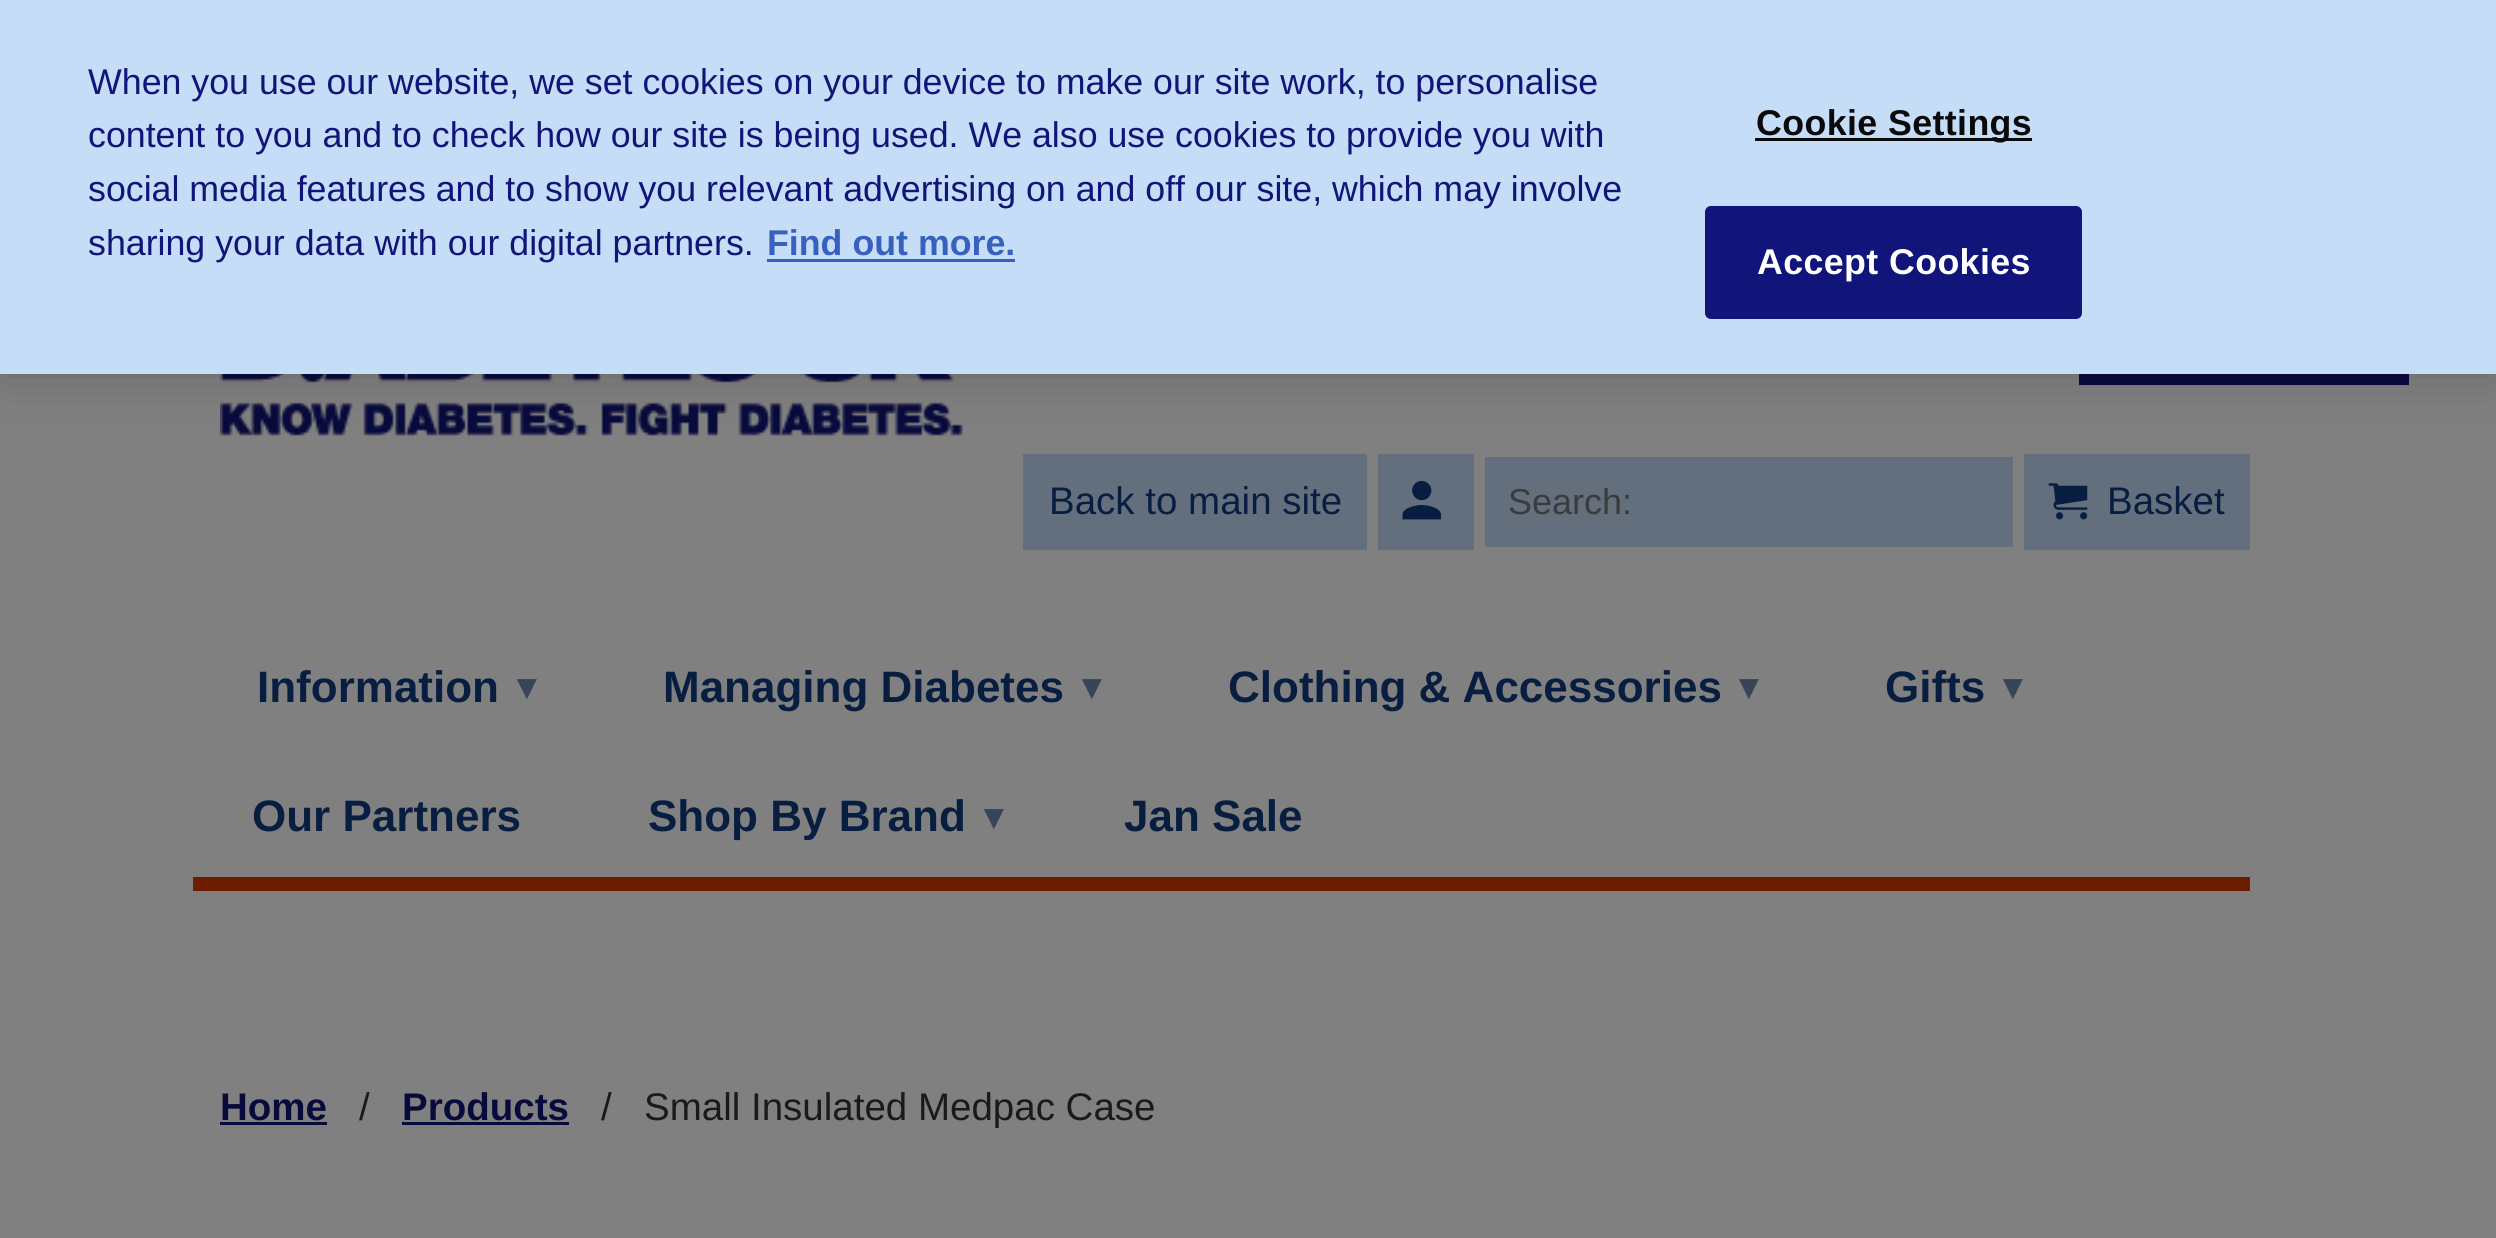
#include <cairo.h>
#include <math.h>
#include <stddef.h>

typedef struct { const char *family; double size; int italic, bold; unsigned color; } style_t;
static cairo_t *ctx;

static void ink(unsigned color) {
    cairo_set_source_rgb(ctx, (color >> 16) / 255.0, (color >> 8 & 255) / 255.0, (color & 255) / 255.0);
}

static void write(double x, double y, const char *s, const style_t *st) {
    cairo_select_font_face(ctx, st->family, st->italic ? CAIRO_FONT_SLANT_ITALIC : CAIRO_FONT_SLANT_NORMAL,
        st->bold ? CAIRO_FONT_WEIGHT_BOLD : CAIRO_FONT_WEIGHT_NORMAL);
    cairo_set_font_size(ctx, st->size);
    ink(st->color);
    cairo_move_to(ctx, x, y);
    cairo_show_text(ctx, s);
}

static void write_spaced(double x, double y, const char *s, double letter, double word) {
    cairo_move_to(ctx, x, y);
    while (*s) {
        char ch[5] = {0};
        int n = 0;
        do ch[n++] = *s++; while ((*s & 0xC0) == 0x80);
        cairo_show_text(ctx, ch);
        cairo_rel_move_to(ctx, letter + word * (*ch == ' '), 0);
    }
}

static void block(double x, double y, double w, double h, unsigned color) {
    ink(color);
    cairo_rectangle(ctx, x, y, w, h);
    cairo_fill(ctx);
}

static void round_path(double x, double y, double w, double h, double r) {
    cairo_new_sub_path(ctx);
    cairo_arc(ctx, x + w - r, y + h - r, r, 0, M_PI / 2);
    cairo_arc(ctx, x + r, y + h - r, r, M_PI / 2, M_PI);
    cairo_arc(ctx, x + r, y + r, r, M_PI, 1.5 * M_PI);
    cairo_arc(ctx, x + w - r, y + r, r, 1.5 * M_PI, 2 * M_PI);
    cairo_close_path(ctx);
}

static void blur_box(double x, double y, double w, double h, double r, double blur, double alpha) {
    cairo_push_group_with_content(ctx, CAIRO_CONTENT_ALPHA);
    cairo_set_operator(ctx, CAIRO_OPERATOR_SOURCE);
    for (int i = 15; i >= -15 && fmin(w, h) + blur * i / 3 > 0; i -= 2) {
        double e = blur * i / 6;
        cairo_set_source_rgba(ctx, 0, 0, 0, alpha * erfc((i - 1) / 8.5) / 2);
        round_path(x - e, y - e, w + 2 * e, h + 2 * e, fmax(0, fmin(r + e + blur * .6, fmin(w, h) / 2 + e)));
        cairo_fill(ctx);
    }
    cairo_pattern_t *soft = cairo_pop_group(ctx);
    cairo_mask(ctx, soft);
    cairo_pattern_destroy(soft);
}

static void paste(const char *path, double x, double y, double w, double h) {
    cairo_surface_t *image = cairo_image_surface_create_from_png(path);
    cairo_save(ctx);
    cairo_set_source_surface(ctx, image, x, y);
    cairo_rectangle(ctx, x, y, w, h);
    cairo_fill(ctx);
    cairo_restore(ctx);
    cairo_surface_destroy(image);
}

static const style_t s1 = {"Liberation Sans", 35.75, 0, 0, 0x111478};
static const style_t s2 = {"Liberation Sans", 35.75, 0, 1, 0x3860be};
static const style_t s3 = {"Liberation Sans", 38.5, 0, 0, 0x081e40};
static const style_t s4 = {"Liberation Sans", 36, 0, 0, 0x3b3b3b};
static const style_t s5 = {"Liberation Sans", 44, 0, 1, 0x081e40};
static const style_t s6 = {"DejaVu Sans", 37, 0, 1, 0x384559};
static const style_t s7 = {"Liberation Sans", 38.5, 0, 1, 0x090a3c};
static const style_t s8 = {"Liberation Sans", 38.5, 0, 0, 0x1c191a};

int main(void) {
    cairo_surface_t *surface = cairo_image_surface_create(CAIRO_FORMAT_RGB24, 2496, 1238);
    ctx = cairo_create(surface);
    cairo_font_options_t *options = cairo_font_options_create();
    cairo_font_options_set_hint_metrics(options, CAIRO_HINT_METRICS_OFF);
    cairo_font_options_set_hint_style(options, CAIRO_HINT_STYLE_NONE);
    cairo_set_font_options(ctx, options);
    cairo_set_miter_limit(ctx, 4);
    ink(0x808080);
    cairo_paint(ctx);
    ink(0x090a3c);
    cairo_new_path(ctx);
    cairo_move_to(ctx, 2079, 374);
    cairo_line_to(ctx, 2079, 385);
    cairo_line_to(ctx, 2409, 385);
    cairo_line_to(ctx, 2409, 259);
    cairo_line_to(ctx, 2398, 259);
    cairo_line_to(ctx, 2398, 374);
    cairo_close_path(ctx);
    cairo_fill(ctx);
    paste("pic1.png", 220, 374, 743, 62);
    ink(0x000000);
    blur_box(0, 0, 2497, 374, 0, 25, 0.2);
    block(0, 0, 2496, 374, 0xc5ddf7);
    write(88, 94, "When you use our website, we set cookies on your device to make our site work, to personalise", &s1);
    write(88, 147, "content to you and to check how our site is being used. We also use cookies to provide you with", &s1);
    write(88, 201, "social media features and to show you relevant advertising on and off our site, which may involve", &s1);
    write(88, 255, "sharing your data with our digital partners.", &s1);
    write(767, 255, "Find out more.", &s2);
    block(767, 259, 248, 3, 0x3860be);
    block(1755, 138, 277, 3, 0x0a0a0a);
    write_spaced(1756, 135, "Cookie Settings", 0.4, 0);
    ink(0x111478);
    round_path(1706.5, 207.5, 374, 110, 4.5);
    cairo_fill_preserve(ctx);
    cairo_set_line_width(ctx, 3);
    cairo_stroke(ctx);
    ink(0xffffff);
    write_spaced(1757, 274, "Accept Cookies", 0.4, 0);
    block(1023, 454, 344, 96, 0x636f7c);
    write(1049, 514, "Back to main site", &s3);
    block(1378, 454, 96, 96, 0x636f7c);
    paste("pic2.png", 1402, 480, 39, 40);
    block(1485, 457, 528, 90, 0x636f7c);
    write(1508, 514, "Search:", &s4);
    block(2024, 454, 226, 96, 0x636f7c);
    paste("pic3.png", 2048, 483, 40, 37);
    write(2107, 514, "Basket", &s3);
    block(193, 877, 2057, 14, 0x6e1e00);
    write(257, 702, "Information", &s5);
    write(517, 699, "▾", &s6);
    write(663, 702, "Managing Diabetes", &s5);
    write(1082, 699, "▾", &s6);
    write(1228, 702, "Clothing & Accessories", &s5);
    write(1739, 699, "▾", &s6);
    write(1885, 702, "Gifts", &s5);
    write(2003, 699, "▾", &s6);
    write(252, 831, "Our Partners", &s5);
    write(648, 831, "Shop By Brand", &s5);
    write(984, 829, "▾", &s6);
    write(1124, 831, "Jan Sale", &s5);
    write(220, 1120, "Home", &s7);
    block(220, 1122, 107, 3, 0x090a3c);
    write(359, 1120, "/", &s8);
    write(402, 1120, "Products", &s7);
    block(402, 1122, 167, 3, 0x090a3c);
    write(601, 1120, "/", &s8);
    write(644, 1120, "Small Insulated Medpac Case", &s8);
    cairo_surface_write_to_png(surface, "screenshot.png");
    cairo_font_options_destroy(options);
    cairo_destroy(ctx);
    cairo_surface_destroy(surface);
    return 0;
}
